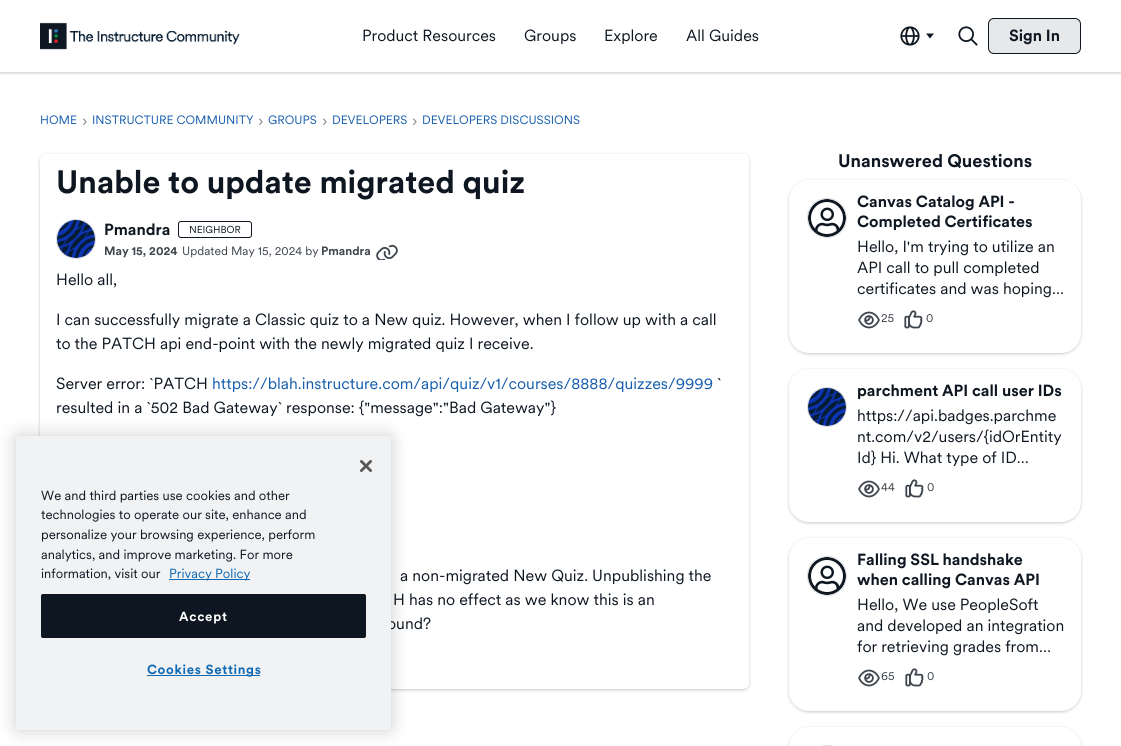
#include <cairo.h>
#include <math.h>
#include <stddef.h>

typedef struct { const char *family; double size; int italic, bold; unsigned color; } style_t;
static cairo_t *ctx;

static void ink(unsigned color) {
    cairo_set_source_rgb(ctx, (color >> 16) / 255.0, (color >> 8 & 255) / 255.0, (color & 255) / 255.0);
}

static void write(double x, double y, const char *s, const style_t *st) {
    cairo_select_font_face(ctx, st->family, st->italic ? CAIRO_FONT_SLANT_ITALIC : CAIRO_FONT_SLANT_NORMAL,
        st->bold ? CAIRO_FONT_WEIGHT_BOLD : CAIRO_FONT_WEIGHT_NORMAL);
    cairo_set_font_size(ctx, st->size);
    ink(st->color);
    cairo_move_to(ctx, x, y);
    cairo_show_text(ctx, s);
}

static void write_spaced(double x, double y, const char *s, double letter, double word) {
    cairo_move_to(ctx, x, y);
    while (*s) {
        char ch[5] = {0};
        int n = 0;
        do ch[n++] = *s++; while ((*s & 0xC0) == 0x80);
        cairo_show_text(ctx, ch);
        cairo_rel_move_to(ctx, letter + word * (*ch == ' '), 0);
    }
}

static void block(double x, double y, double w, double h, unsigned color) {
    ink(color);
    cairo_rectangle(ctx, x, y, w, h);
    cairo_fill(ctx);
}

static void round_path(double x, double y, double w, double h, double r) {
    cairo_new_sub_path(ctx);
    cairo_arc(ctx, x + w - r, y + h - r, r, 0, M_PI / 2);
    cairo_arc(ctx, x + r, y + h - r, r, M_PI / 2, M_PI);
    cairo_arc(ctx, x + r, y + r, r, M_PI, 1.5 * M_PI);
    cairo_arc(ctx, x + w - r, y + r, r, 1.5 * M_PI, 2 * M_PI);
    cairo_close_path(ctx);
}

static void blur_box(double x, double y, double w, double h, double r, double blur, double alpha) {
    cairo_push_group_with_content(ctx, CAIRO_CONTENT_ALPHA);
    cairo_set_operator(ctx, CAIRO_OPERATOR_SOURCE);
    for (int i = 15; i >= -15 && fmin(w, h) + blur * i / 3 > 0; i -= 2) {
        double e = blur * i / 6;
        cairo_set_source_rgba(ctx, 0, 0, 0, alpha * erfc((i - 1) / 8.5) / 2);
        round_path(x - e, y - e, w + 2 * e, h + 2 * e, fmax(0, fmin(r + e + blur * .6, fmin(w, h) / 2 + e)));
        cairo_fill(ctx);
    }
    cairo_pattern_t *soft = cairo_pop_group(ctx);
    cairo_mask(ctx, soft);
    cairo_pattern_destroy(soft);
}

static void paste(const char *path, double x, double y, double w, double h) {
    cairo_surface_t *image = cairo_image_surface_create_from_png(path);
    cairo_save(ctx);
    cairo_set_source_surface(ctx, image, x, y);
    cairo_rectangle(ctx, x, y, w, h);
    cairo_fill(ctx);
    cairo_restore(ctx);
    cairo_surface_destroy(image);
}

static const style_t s1 = {"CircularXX", 16, 0, 0, 0x0e1721};
static const style_t s2 = {"CircularXX", 16, 0, 1, 0x0e1721};
static const style_t s3 = {"CircularXX", 12, 0, 0, 0x155dae};
static const style_t s4 = {"Liberation Sans", 16, 0, 0, 0x878b90};
static const style_t s5 = {"CircularXX", 32, 0, 1, 0x0e1721};
static const style_t s6 = {"CircularXX", 10, 0, 0, 0x0e1721};
static const style_t s7 = {"CircularXX", 12, 0, 1, 0x3e454d};
static const style_t s8 = {"CircularXX", 12, 0, 0, 0x3e454d};
static const style_t s9 = {"CircularXX", 16, 0, 0, 0x155dae};
static const style_t s10 = {"CircularXX", 18, 0, 1, 0x0e1721};
static const style_t s11 = {"CircularXX", 13.1, 0, 0, 0x0e1721};
static const style_t s12 = {"CircularXX", 13.1, 0, 0, 0x0e68b3};

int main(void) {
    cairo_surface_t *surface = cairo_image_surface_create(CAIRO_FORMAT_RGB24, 1121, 746);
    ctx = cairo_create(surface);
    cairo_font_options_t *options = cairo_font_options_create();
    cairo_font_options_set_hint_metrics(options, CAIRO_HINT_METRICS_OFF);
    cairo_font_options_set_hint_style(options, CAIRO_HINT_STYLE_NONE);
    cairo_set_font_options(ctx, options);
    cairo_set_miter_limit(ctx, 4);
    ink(0xffffff);
    cairo_paint(ctx);
    cairo_save(ctx);
    cairo_rectangle(ctx, 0, 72, 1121, 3);
    cairo_clip(ctx);
    ink(0x000000);
    blur_box(0, 1, 1121, 72, 0, 1.5, 0.22);
    cairo_restore(ctx);
    paste("pic1.png", 40, 22, 200, 28);
    write(362, 41, "Product Resources", &s1);
    write(524, 41, "Groups", &s1);
    write(604, 41, "Explore", &s1);
    write(686, 41, "All Guides", &s1);
    paste("pic2.png", 900, 26, 20, 20);
    cairo_new_path(ctx);
    cairo_move_to(ctx, 926, 33.5);
    cairo_line_to(ctx, 934, 33.5);
    cairo_line_to(ctx, 930, 38.5);
    cairo_close_path(ctx);
    cairo_fill(ctx);
    paste("pic3.png", 958, 26, 20, 20);
    ink(0xe7e8e9);
    round_path(988.5, 18.5, 92, 35, 5.5);
    cairo_fill_preserve(ctx);
    ink(0x0e1721);
    cairo_set_line_width(ctx, 1);
    cairo_stroke(ctx);
    write(1009, 41, "Sign In", &s2);
    write(40, 124, "HOME", &s3);
    write(82, 126, "›", &s4);
    write(92, 124, "INSTRUCTURE COMMUNITY", &s3);
    write(258, 126, "›", &s4);
    write(268, 124, "GROUPS", &s3);
    write(322, 126, "›", &s4);
    write(332, 124, "DEVELOPERS", &s3);
    write(412, 126, "›", &s4);
    write(422, 124, "DEVELOPERS DISCUSSIONS", &s3);
    ink(0x000000);
    blur_box(40, 155, 709, 535, 6, 1.5, 0.22);
    ink(0xffffff);
    round_path(40, 154, 709, 535, 6);
    cairo_fill(ctx);
    write(56, 193, "Unable to update migrated quiz", &s5);
    cairo_new_path(ctx);
    cairo_arc(ctx, 76, 239, 19.5, 0, 2 * M_PI);
    ink(0xdbdcde);
    cairo_stroke(ctx);
    paste("pic4.png", 57, 220, 38, 38);
    write(104, 235, "Pmandra", &s2);
    round_path(178.5, 221.5, 73, 16, 2.5);
    cairo_stroke(ctx);
    write(189, 233, "NEIGHBOR", &s6);
    write(104, 255, "May 15, 2024", &s7);
    write(182, 255, "Updated May 15, 2024 by", &s8);
    write(321, 255, "Pmandra", &s7);
    paste("pic5.png", 376, 244, 22, 16);
    write(56, 285, "Hello all,", &s1);
    write(56, 325, "I can successfully migrate a Classic quiz to a New quiz. However, when I follow up with a call", &s1);
    write(56, 349, "to the PATCH api end-point with the newly migrated quiz I receive.", &s1);
    write(56, 389, "Server error: `PATCH", &s1);
    write(212, 389, "https://blah.instructure.com/api/quiz/v1/courses/8888/quizzes/9999", &s9);
    write(717, 389, "`", &s1);
    write(56, 413, "resulted in a `502 Bad Gateway` response: {\"message\":\"Bad Gateway\"}", &s1);
    write(400, 581, "a non-migrated New Quiz. Unpublishing the", &s1);
    write(393, 605, "H has no effect as we know this is an", &s1);
    write(387, 629, "ound?", &s1);
    write(838, 167, "Unanswered Questions", &s10);
    ink(0x000000);
    blur_box(789, 181, 292, 173, 20, 1.5, 0.22);
    ink(0xffffff);
    round_path(789, 180, 292, 173, 20);
    cairo_fill(ctx);
    cairo_arc(ctx, 827, 218, 19.5, 0, 2 * M_PI);
    ink(0xdbdcde);
    cairo_stroke(ctx);
    paste("pic6.png", 808, 199, 38, 38);
    write(857, 207, "Canvas Catalog API -", &s2);
    write(857, 227, "Completed Certificates", &s2);
    write(857, 252, "Hello, I'm trying to utilize an", &s1);
    write(857, 273, "API call to pull completed", &s1);
    write(857, 294, "certificates and was hoping…", &s1);
    paste("pic7.png", 858, 311, 22, 18);
    write(881, 322, "25", &s8);
    paste("pic8.png", 904, 310, 19, 19);
    write(926, 322, "0", &s8);
    ink(0x000000);
    blur_box(789, 370, 292, 153, 20, 1.5, 0.22);
    ink(0xffffff);
    round_path(789, 369, 292, 153, 20);
    cairo_fill(ctx);
    cairo_arc(ctx, 827, 407, 19.5, 0, 2 * M_PI);
    ink(0xdbdcde);
    cairo_stroke(ctx);
    paste("pic9.png", 808, 388, 38, 38);
    write(857, 396, "parchment API call user IDs", &s2);
    write(857, 421, "https://api.badges.parchme", &s1);
    write(857, 442, "nt.com/v2/users/{idOrEntity", &s1);
    write(857, 463, "Id} Hi. What type of ID…", &s1);
    paste("pic7.png", 858, 480, 22, 18);
    write(881, 491, "44", &s8);
    paste("pic8.png", 905, 479, 19, 19);
    write(927, 491, "0", &s8);
    ink(0x000000);
    blur_box(789, 539, 292, 173, 20, 1.5, 0.22);
    ink(0xffffff);
    round_path(789, 538, 292, 173, 20);
    cairo_fill(ctx);
    cairo_arc(ctx, 827, 576, 19.5, 0, 2 * M_PI);
    ink(0xdbdcde);
    cairo_stroke(ctx);
    paste("pic6.png", 808, 557, 38, 38);
    write(857, 565, "Falling SSL handshake", &s2);
    write(857, 585, "when calling Canvas API", &s2);
    write(857, 610, "Hello, We use PeopleSoft", &s1);
    write(857, 631, "and developed an integration", &s1);
    write(857, 652, "for retrieving grades from…", &s1);
    paste("pic7.png", 858, 669, 22, 18);
    write(881, 680, "65", &s8);
    paste("pic8.png", 905, 668, 19, 19);
    write(927, 680, "0", &s8);
    ink(0x000000);
    blur_box(789, 728, 292, 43, 20, 1.5, 0.22);
    ink(0xffffff);
    cairo_new_path(ctx);
    cairo_move_to(ctx, 809, 727);
    cairo_line_to(ctx, 1061, 727);
    cairo_curve_to(ctx, 1072, 727, 1081, 736, 1081, 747);
    cairo_line_to(ctx, 1081, 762);
    cairo_line_to(ctx, 789, 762);
    cairo_line_to(ctx, 789, 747);
    cairo_curve_to(ctx, 789, 736, 798, 727, 809, 727);
    cairo_close_path(ctx);
    cairo_fill(ctx);
    round_path(807.5, 745.5, 39, 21, 19.5);
    ink(0xdbdcde);
    cairo_stroke(ctx);
    ink(0x000000);
    blur_box(16, 436, 375, 294, 2.5, 9, 0.2);
    ink(0xf0f2f3);
    round_path(16, 436, 375, 294, 2.5);
    cairo_fill(ctx);
    paste("pic10.png", 360, 460, 12, 12);
    write(41, 500, "We and third parties use cookies and other", &s11);
    write(41, 519, "technologies to operate our site, enhance and", &s11);
    write(41, 539, "personalize your browsing experience, perform", &s11);
    write(41, 559, "analytics, and improve marketing. For more", &s11);
    write(41, 578, "information, visit our", &s11);
    block(169, 579, 81, 1, 0x0e68b3);
    write(169, 578, "Privacy Policy", &s12);
    ink(0x0e1721);
    round_path(41.5, 594.5, 324, 43, 1.5);
    cairo_fill_preserve(ctx);
    cairo_stroke(ctx);
    cairo_select_font_face(ctx, "CircularXX", CAIRO_FONT_SLANT_NORMAL, CAIRO_FONT_WEIGHT_BOLD);
    ink(0xffffff);
    write_spaced(179, 621, "Accept", 0.7, 0);
    block(147, 675, 113, 1, 0x0e68b3);
    write_spaced(147, 674, "Cookies Settings", 0.7, 0);
    cairo_surface_write_to_png(surface, "screenshot.png");
    cairo_font_options_destroy(options);
    cairo_destroy(ctx);
    cairo_surface_destroy(surface);
    return 0;
}
